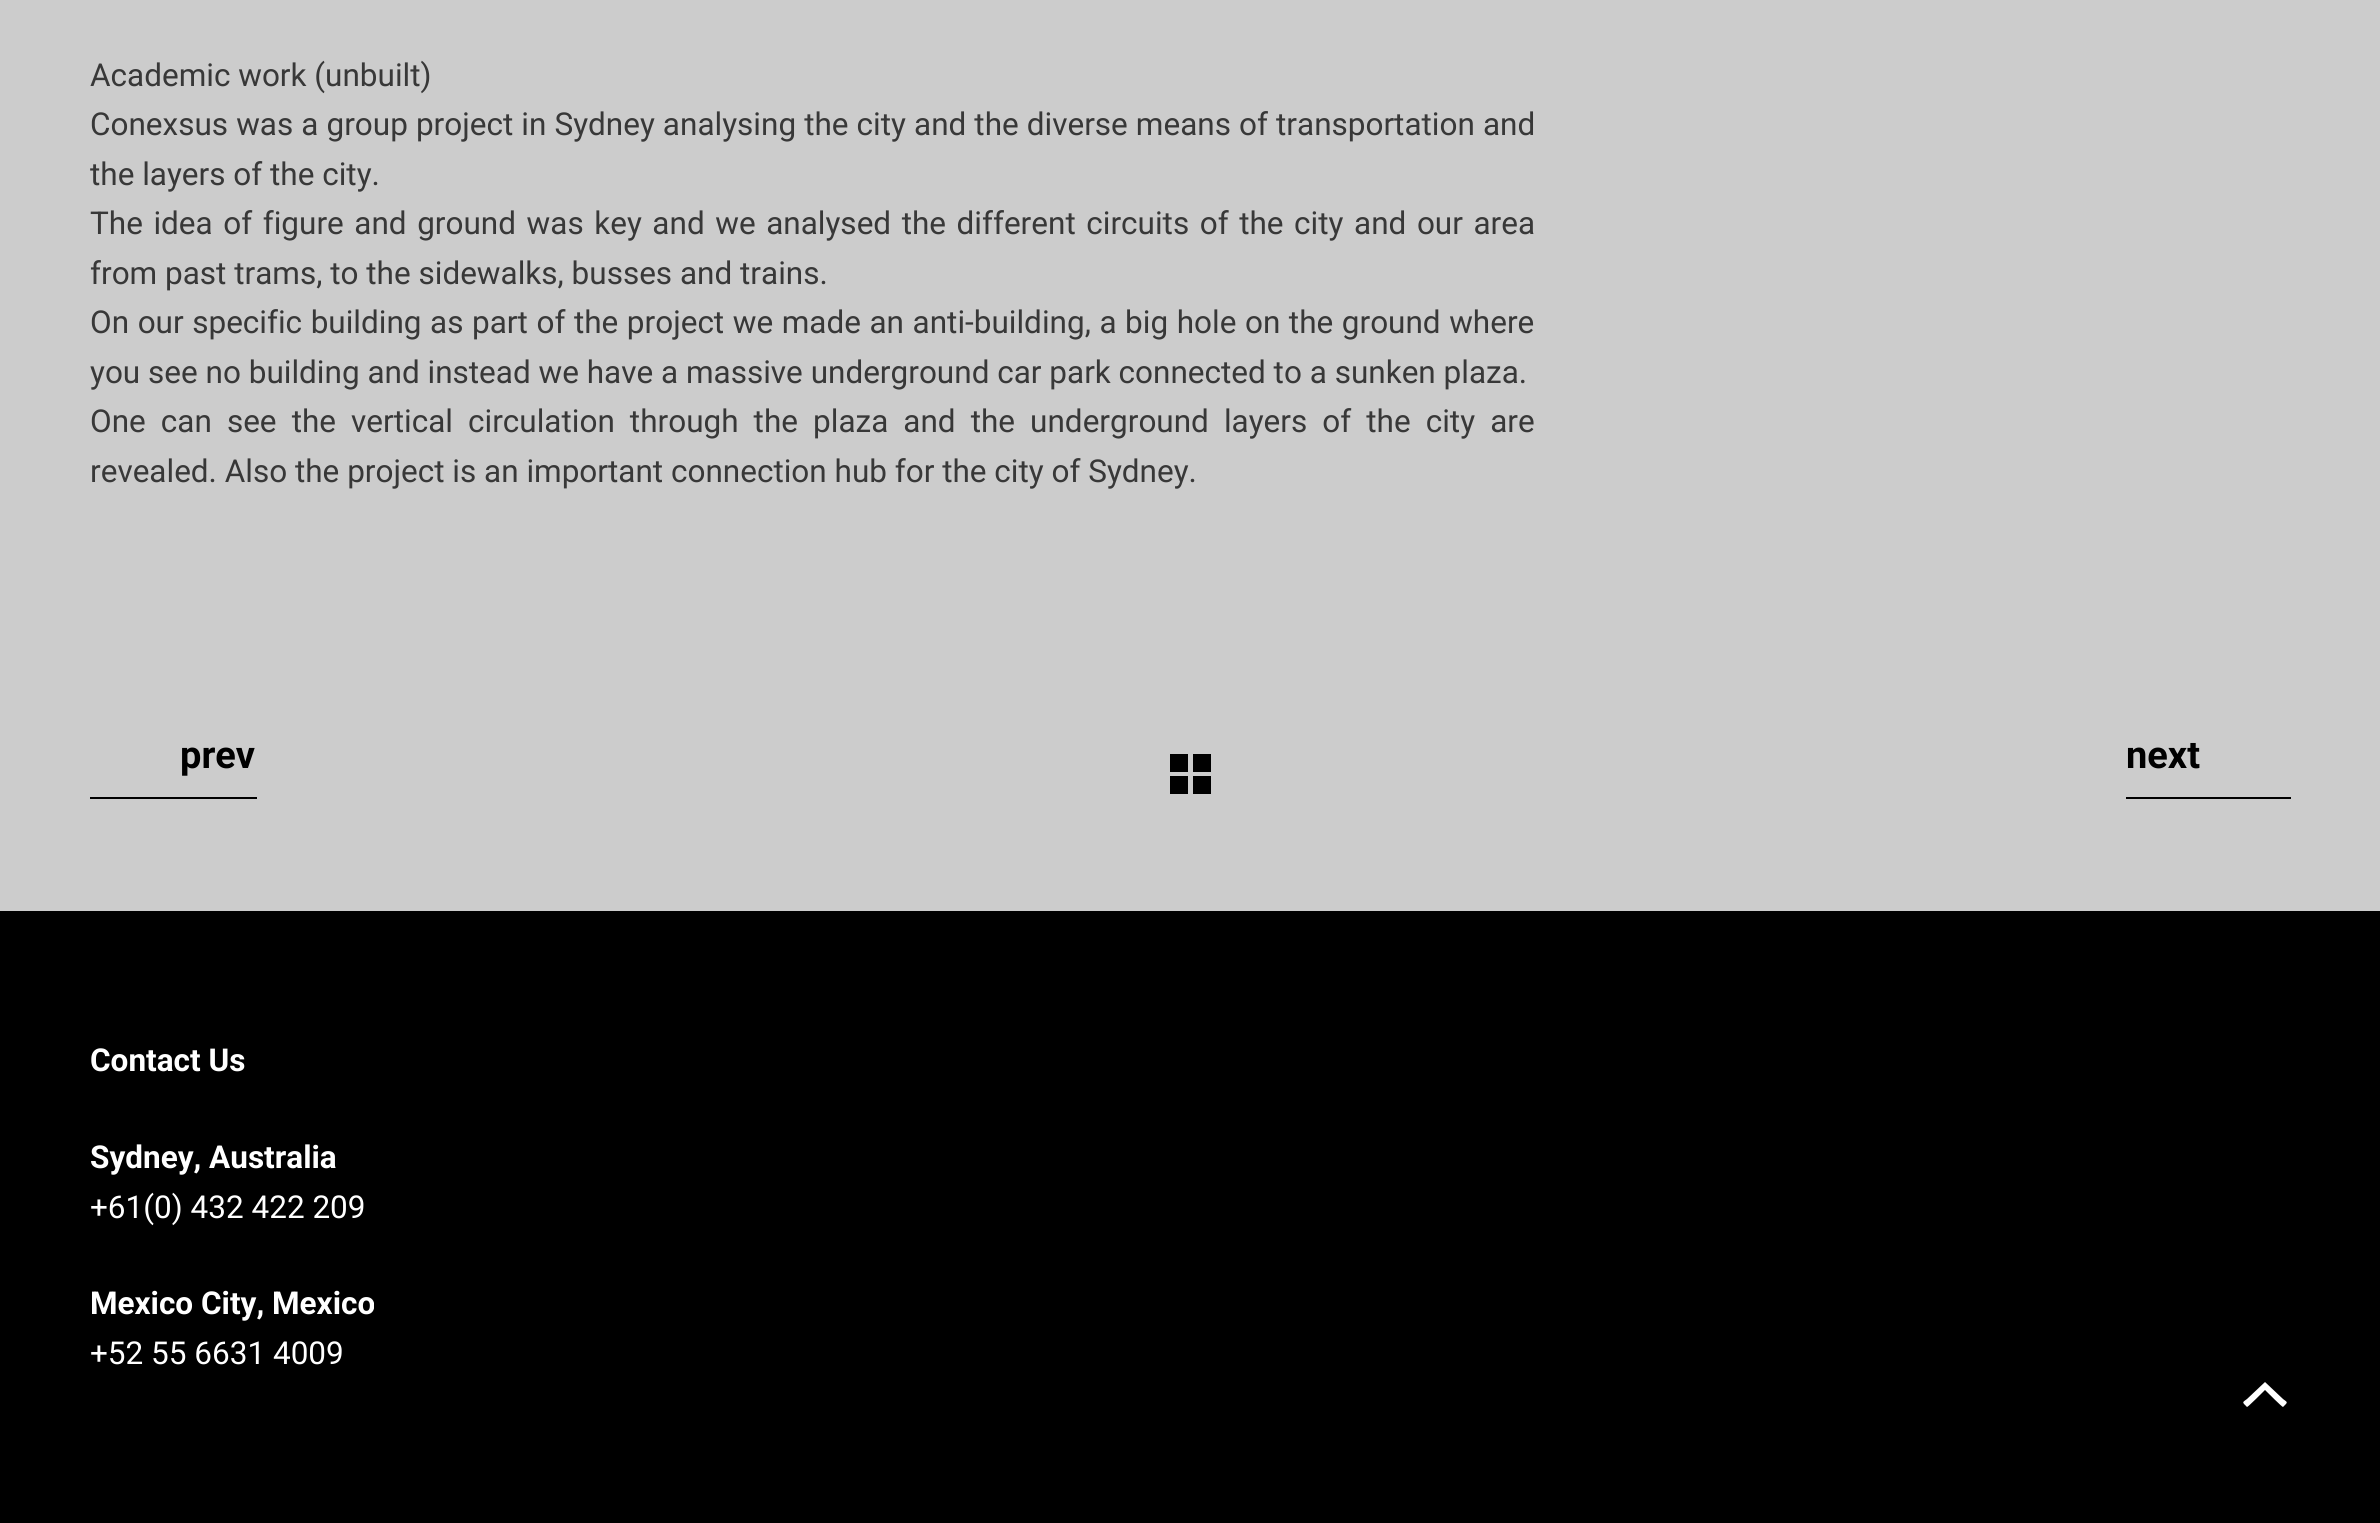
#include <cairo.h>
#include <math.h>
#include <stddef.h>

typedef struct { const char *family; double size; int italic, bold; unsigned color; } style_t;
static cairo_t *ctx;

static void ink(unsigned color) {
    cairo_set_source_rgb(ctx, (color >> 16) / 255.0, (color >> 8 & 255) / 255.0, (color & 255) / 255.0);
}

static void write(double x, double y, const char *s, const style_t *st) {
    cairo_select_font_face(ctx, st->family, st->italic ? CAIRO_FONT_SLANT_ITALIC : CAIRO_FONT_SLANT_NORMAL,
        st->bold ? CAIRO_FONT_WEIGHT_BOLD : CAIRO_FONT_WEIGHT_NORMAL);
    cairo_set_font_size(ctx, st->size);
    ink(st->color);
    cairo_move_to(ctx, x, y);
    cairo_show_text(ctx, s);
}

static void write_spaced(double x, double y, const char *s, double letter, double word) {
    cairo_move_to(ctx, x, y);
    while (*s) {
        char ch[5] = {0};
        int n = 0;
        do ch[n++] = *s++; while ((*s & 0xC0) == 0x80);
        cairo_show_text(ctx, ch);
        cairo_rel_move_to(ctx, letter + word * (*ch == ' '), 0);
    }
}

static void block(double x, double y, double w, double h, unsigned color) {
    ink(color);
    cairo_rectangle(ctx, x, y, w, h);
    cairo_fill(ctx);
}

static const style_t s1 = {"Roboto", 31.5, 0, 0, 0x383838};
static const style_t s2 = {"Roboto", 38, 0, 1, 0x000000};
static const style_t s3 = {"Roboto", 31.5, 0, 1, 0xffffff};
static const style_t s4 = {"Roboto", 31.5, 0, 0, 0xffffff};

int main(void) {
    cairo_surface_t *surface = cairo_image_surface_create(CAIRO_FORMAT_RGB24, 2380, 1523);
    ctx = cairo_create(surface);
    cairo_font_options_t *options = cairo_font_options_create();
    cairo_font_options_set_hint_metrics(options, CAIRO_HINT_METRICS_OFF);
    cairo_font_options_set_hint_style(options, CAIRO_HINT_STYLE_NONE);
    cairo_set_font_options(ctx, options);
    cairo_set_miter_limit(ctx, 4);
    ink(0xcccccc);
    cairo_paint(ctx);
    write(90, 86, "Academic work (unbuilt)", &s1);
    write_spaced(90, 135, "Conexsus was a group project in Sydney analysing the city and the diverse means of transportation and", 0, 0.25);
    write(90, 185, "the layers of the city.", &s1);
    write_spaced(90, 234, "The idea of figure and ground was key and we analysed the different circuits of the city and our area", 0, 2.75);
    write(90, 284, "from past trams, to the sidewalks, busses and trains.", &s1);
    write_spaced(90, 333, "On our specific building as part of the project we made an anti-building, a big hole on the ground where", 0, 0.75);
    write(90, 383, "you see no building and instead we have a massive underground car park connected to a sunken plaza.", &s1);
    write_spaced(90, 432, "One can see the vertical circulation through the plaza and the underground layers of the city are", 0, 7.25);
    write(90, 482, "revealed. Also the project is an important connection hub for the city of Sydney.", &s1);
    write(180, 768, "prev", &s2);
    block(90, 797, 167, 2, 0x000000);
    block(1170, 754, 18, 18, 0x000000);
    block(1193, 754, 18, 18, 0x000000);
    block(1170, 776, 18, 18, 0x000000);
    block(1193, 776, 18, 18, 0x000000);
    write(2126, 768, "next", &s2);
    block(2126, 797, 165, 2, 0x000000);
    block(0, 911, 2380, 612, 0x000000);
    write(90, 1071, "Contact Us", &s3);
    write(90, 1168, "Sydney, Australia", &s3);
    write(90, 1218, "+61(0) 432 422 209", &s4);
    write(90, 1314, "Mexico City, Mexico", &s3);
    write(90, 1364, "+52 55 6631 4009", &s4);
    cairo_new_path(ctx);
    cairo_move_to(ctx, 2265, 1390);
    cairo_curve_to(ctx, 2262, 1393, 2248, 1407, 2247, 1407);
    cairo_line_to(ctx, 2245, 1405);
    cairo_curve_to(ctx, 2242, 1402, 2243, 1402, 2247, 1399);
    cairo_line_to(ctx, 2265, 1382);
    cairo_line_to(ctx, 2283, 1399);
    cairo_curve_to(ctx, 2287, 1402, 2288, 1402, 2285, 1405);
    cairo_line_to(ctx, 2283, 1407);
    cairo_curve_to(ctx, 2282, 1407, 2268, 1393, 2265, 1390);
    cairo_close_path(ctx);
    cairo_fill(ctx);
    cairo_surface_write_to_png(surface, "screenshot.png");
    cairo_font_options_destroy(options);
    cairo_destroy(ctx);
    cairo_surface_destroy(surface);
    return 0;
}
